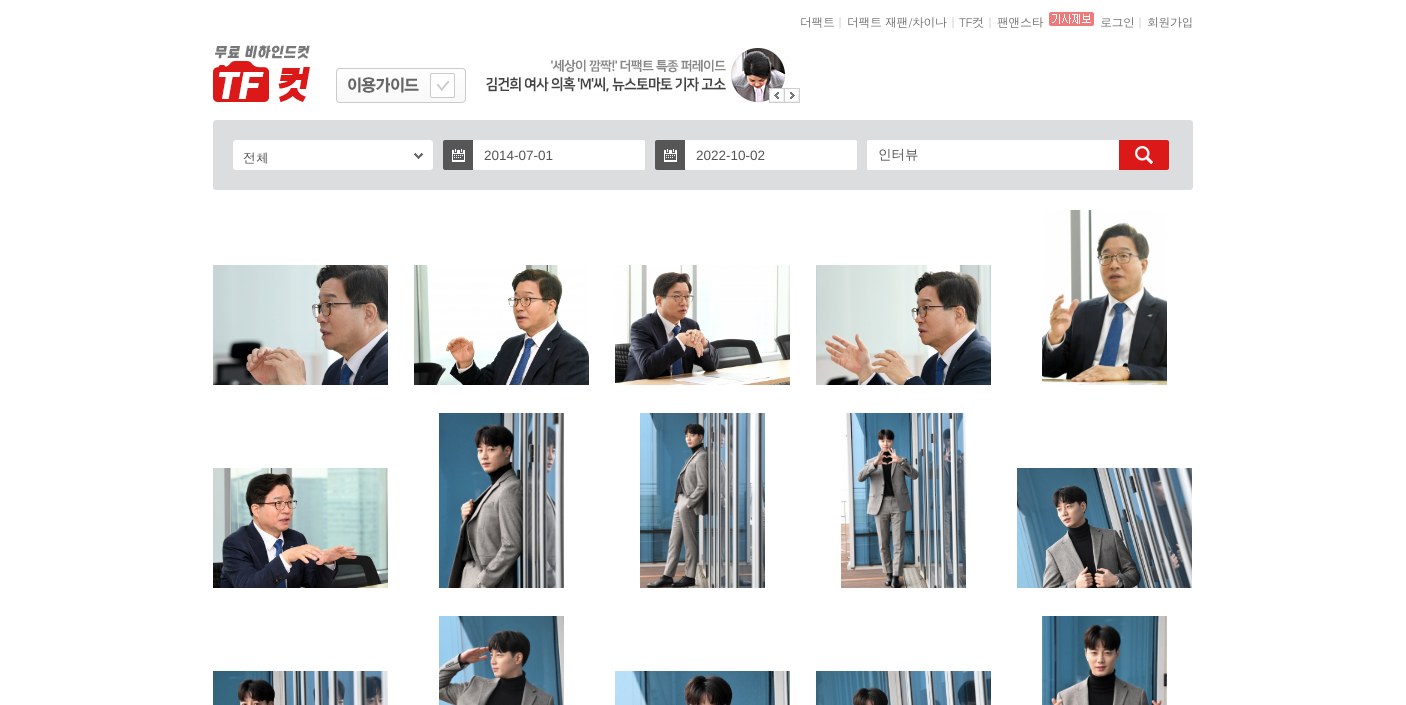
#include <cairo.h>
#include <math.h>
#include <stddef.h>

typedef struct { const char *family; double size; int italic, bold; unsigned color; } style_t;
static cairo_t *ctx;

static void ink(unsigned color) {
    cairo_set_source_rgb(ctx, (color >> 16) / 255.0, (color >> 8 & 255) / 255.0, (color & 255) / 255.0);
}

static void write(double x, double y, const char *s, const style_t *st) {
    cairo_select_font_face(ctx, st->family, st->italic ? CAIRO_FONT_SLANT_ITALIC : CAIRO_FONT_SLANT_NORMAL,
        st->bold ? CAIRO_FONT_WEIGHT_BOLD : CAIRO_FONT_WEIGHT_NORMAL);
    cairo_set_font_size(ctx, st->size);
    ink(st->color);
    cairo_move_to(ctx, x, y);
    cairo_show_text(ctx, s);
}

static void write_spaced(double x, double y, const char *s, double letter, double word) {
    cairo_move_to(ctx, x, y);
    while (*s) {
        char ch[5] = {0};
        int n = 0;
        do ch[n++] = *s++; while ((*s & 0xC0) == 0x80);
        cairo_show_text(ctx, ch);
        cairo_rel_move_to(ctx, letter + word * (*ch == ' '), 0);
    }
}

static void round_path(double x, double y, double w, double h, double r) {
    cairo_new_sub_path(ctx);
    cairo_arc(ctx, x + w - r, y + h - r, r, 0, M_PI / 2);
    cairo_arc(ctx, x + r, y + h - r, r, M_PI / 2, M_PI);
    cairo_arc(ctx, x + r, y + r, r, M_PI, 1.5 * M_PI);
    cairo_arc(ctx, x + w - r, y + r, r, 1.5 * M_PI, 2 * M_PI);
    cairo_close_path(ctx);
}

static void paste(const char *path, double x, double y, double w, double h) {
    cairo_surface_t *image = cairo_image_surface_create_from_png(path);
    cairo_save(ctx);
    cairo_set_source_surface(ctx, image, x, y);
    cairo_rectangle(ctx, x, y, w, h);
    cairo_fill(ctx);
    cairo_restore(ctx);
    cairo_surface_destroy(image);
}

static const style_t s1 = {"Dotum", 13, 0, 0, 0x444444};
static const style_t s2 = {"Liberation Sans", 13.5, 0, 0, 0x555555};
static const style_t s3 = {"WenQuanYi Zen Hei Medium", 13.5, 0, 0, 0x555555};

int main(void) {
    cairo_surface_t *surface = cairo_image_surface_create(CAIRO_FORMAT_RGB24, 1406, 705);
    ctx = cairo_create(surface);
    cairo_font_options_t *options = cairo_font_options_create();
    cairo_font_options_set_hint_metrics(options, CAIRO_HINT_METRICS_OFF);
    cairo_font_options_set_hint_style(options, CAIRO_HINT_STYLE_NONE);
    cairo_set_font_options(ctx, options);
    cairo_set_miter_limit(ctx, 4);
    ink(0xffffff);
    cairo_paint(ctx);
    cairo_select_font_face(ctx, "Dotum", CAIRO_FONT_SLANT_NORMAL, CAIRO_FONT_WEIGHT_NORMAL);
    cairo_set_font_size(ctx, 12);
    ink(0x666666);
    write_spaced(800, 27, "더팩트", -0.5, 0);
    ink(0xc2c2c2);
    write_spaced(837, 27, "|", -0.5, 0);
    ink(0x666666);
    write_spaced(847, 27, "더팩트 재팬", -0.5, 0);
    ink(0x5e5e5e);
    write_spaced(908, 27, "/", -0.5, 0);
    ink(0x666666);
    write_spaced(912, 27, "차이나", -0.5, 0);
    ink(0xc2c2c2);
    write_spaced(950, 27, "|", -0.5, 0);
    ink(0x666666);
    write_spaced(959, 27, "TF컷", -0.5, 0);
    ink(0xc2c2c2);
    write_spaced(987, 27, "|", -0.5, 0);
    ink(0x666666);
    write_spaced(997, 27, "팬앤스타", -0.5, 0);
    paste("pic1.png", 1049, 12, 45, 14);
    write_spaced(1100, 27, "로그인", -0.5, 0);
    ink(0xc2c2c2);
    write_spaced(1137, 27, "|", -0.5, 0);
    ink(0x666666);
    write_spaced(1147, 27, "회원가입", -0.5, 0);
    paste("pic2.png", 213, 45, 97, 57);
    paste("pic3.png", 336, 68, 130, 35);
    paste("pic4.png", 430, 73, 25, 25);
    paste("pic5.png", 486, 48, 303, 54);
    paste("pic6.png", 769, 88, 16, 15);
    paste("pic7.png", 785, 88, 15, 15);
    ink(0xdcdddf);
    round_path(213, 120, 980, 70, 3);
    cairo_fill(ctx);
    ink(0xffffff);
    round_path(233, 140, 200, 30, 3);
    cairo_fill(ctx);
    write(243, 163, "전체", &s1);
    paste("pic8.png", 414, 153, 9, 6);
    ink(0x565656);
    cairo_new_path(ctx);
    cairo_move_to(ctx, 445, 140);
    cairo_line_to(ctx, 473, 140);
    cairo_line_to(ctx, 473, 170);
    cairo_line_to(ctx, 445, 170);
    cairo_curve_to(ctx, 444, 170, 443, 169, 443, 168);
    cairo_line_to(ctx, 443, 142);
    cairo_curve_to(ctx, 443, 141, 444, 140, 445, 140);
    cairo_close_path(ctx);
    cairo_fill(ctx);
    paste("pic9.png", 452, 149, 13, 13);
    ink(0xffffff);
    cairo_new_path(ctx);
    cairo_move_to(ctx, 473.5, 140.5);
    cairo_line_to(ctx, 643, 140.5);
    cairo_curve_to(ctx, 644, 140.5, 644.5, 141, 644.5, 142);
    cairo_line_to(ctx, 644.5, 168);
    cairo_curve_to(ctx, 644.5, 169, 644, 169.5, 643, 169.5);
    cairo_line_to(ctx, 473.5, 169.5);
    cairo_close_path(ctx);
    cairo_fill_preserve(ctx);
    cairo_set_line_width(ctx, 1);
    cairo_stroke(ctx);
    write(484, 160, "2014-07-01", &s2);
    ink(0x565656);
    cairo_new_path(ctx);
    cairo_move_to(ctx, 657, 140);
    cairo_line_to(ctx, 685, 140);
    cairo_line_to(ctx, 685, 170);
    cairo_line_to(ctx, 657, 170);
    cairo_curve_to(ctx, 656, 170, 655, 169, 655, 168);
    cairo_line_to(ctx, 655, 142);
    cairo_curve_to(ctx, 655, 141, 656, 140, 657, 140);
    cairo_close_path(ctx);
    cairo_fill(ctx);
    paste("pic9.png", 664, 149, 13, 13);
    ink(0xffffff);
    cairo_new_path(ctx);
    cairo_move_to(ctx, 685.5, 140.5);
    cairo_line_to(ctx, 855, 140.5);
    cairo_curve_to(ctx, 856, 140.5, 856.5, 141, 856.5, 142);
    cairo_line_to(ctx, 856.5, 168);
    cairo_curve_to(ctx, 856.5, 169, 856, 169.5, 855, 169.5);
    cairo_line_to(ctx, 685.5, 169.5);
    cairo_close_path(ctx);
    cairo_fill_preserve(ctx);
    cairo_stroke(ctx);
    write(696, 160, "2022-10-02", &s2);
    ink(0xffffff);
    cairo_new_path(ctx);
    cairo_move_to(ctx, 869, 140.5);
    cairo_line_to(ctx, 1118.5, 140.5);
    cairo_line_to(ctx, 1118.5, 169.5);
    cairo_line_to(ctx, 869, 169.5);
    cairo_curve_to(ctx, 868, 169.5, 867.5, 169, 867.5, 168);
    cairo_line_to(ctx, 867.5, 142);
    cairo_curve_to(ctx, 867.5, 141, 868, 140.5, 869, 140.5);
    cairo_close_path(ctx);
    cairo_fill_preserve(ctx);
    cairo_stroke(ctx);
    write(878, 159, "인터뷰", &s3);
    ink(0xdc1919);
    cairo_new_path(ctx);
    cairo_move_to(ctx, 1119, 140);
    cairo_line_to(ctx, 1167, 140);
    cairo_curve_to(ctx, 1168, 140, 1169, 141, 1169, 142);
    cairo_line_to(ctx, 1169, 168);
    cairo_curve_to(ctx, 1169, 169, 1168, 170, 1167, 170);
    cairo_line_to(ctx, 1119, 170);
    cairo_close_path(ctx);
    cairo_fill(ctx);
    paste("pic10.png", 1135, 146, 18, 18);
    paste("pic11.png", 213, 265, 175, 120);
    paste("pic12.png", 414, 265, 175, 120);
    paste("pic13.png", 615, 265, 175, 120);
    paste("pic14.png", 816, 265, 175, 120);
    paste("pic15.png", 1042, 210, 125, 175);
    paste("pic16.png", 213, 468, 175, 120);
    paste("pic17.png", 439, 413, 125, 175);
    paste("pic18.png", 640, 413, 125, 175);
    paste("pic19.png", 841, 413, 125, 175);
    paste("pic20.png", 1017, 468, 175, 120);
    paste("pic21.png", 213, 671, 175, 34);
    paste("pic22.png", 439, 616, 125, 89);
    paste("pic23.png", 615, 671, 175, 34);
    paste("pic24.png", 816, 671, 175, 34);
    paste("pic25.png", 1042, 616, 125, 89);
    cairo_surface_write_to_png(surface, "screenshot.png");
    cairo_font_options_destroy(options);
    cairo_destroy(ctx);
    cairo_surface_destroy(surface);
    return 0;
}
